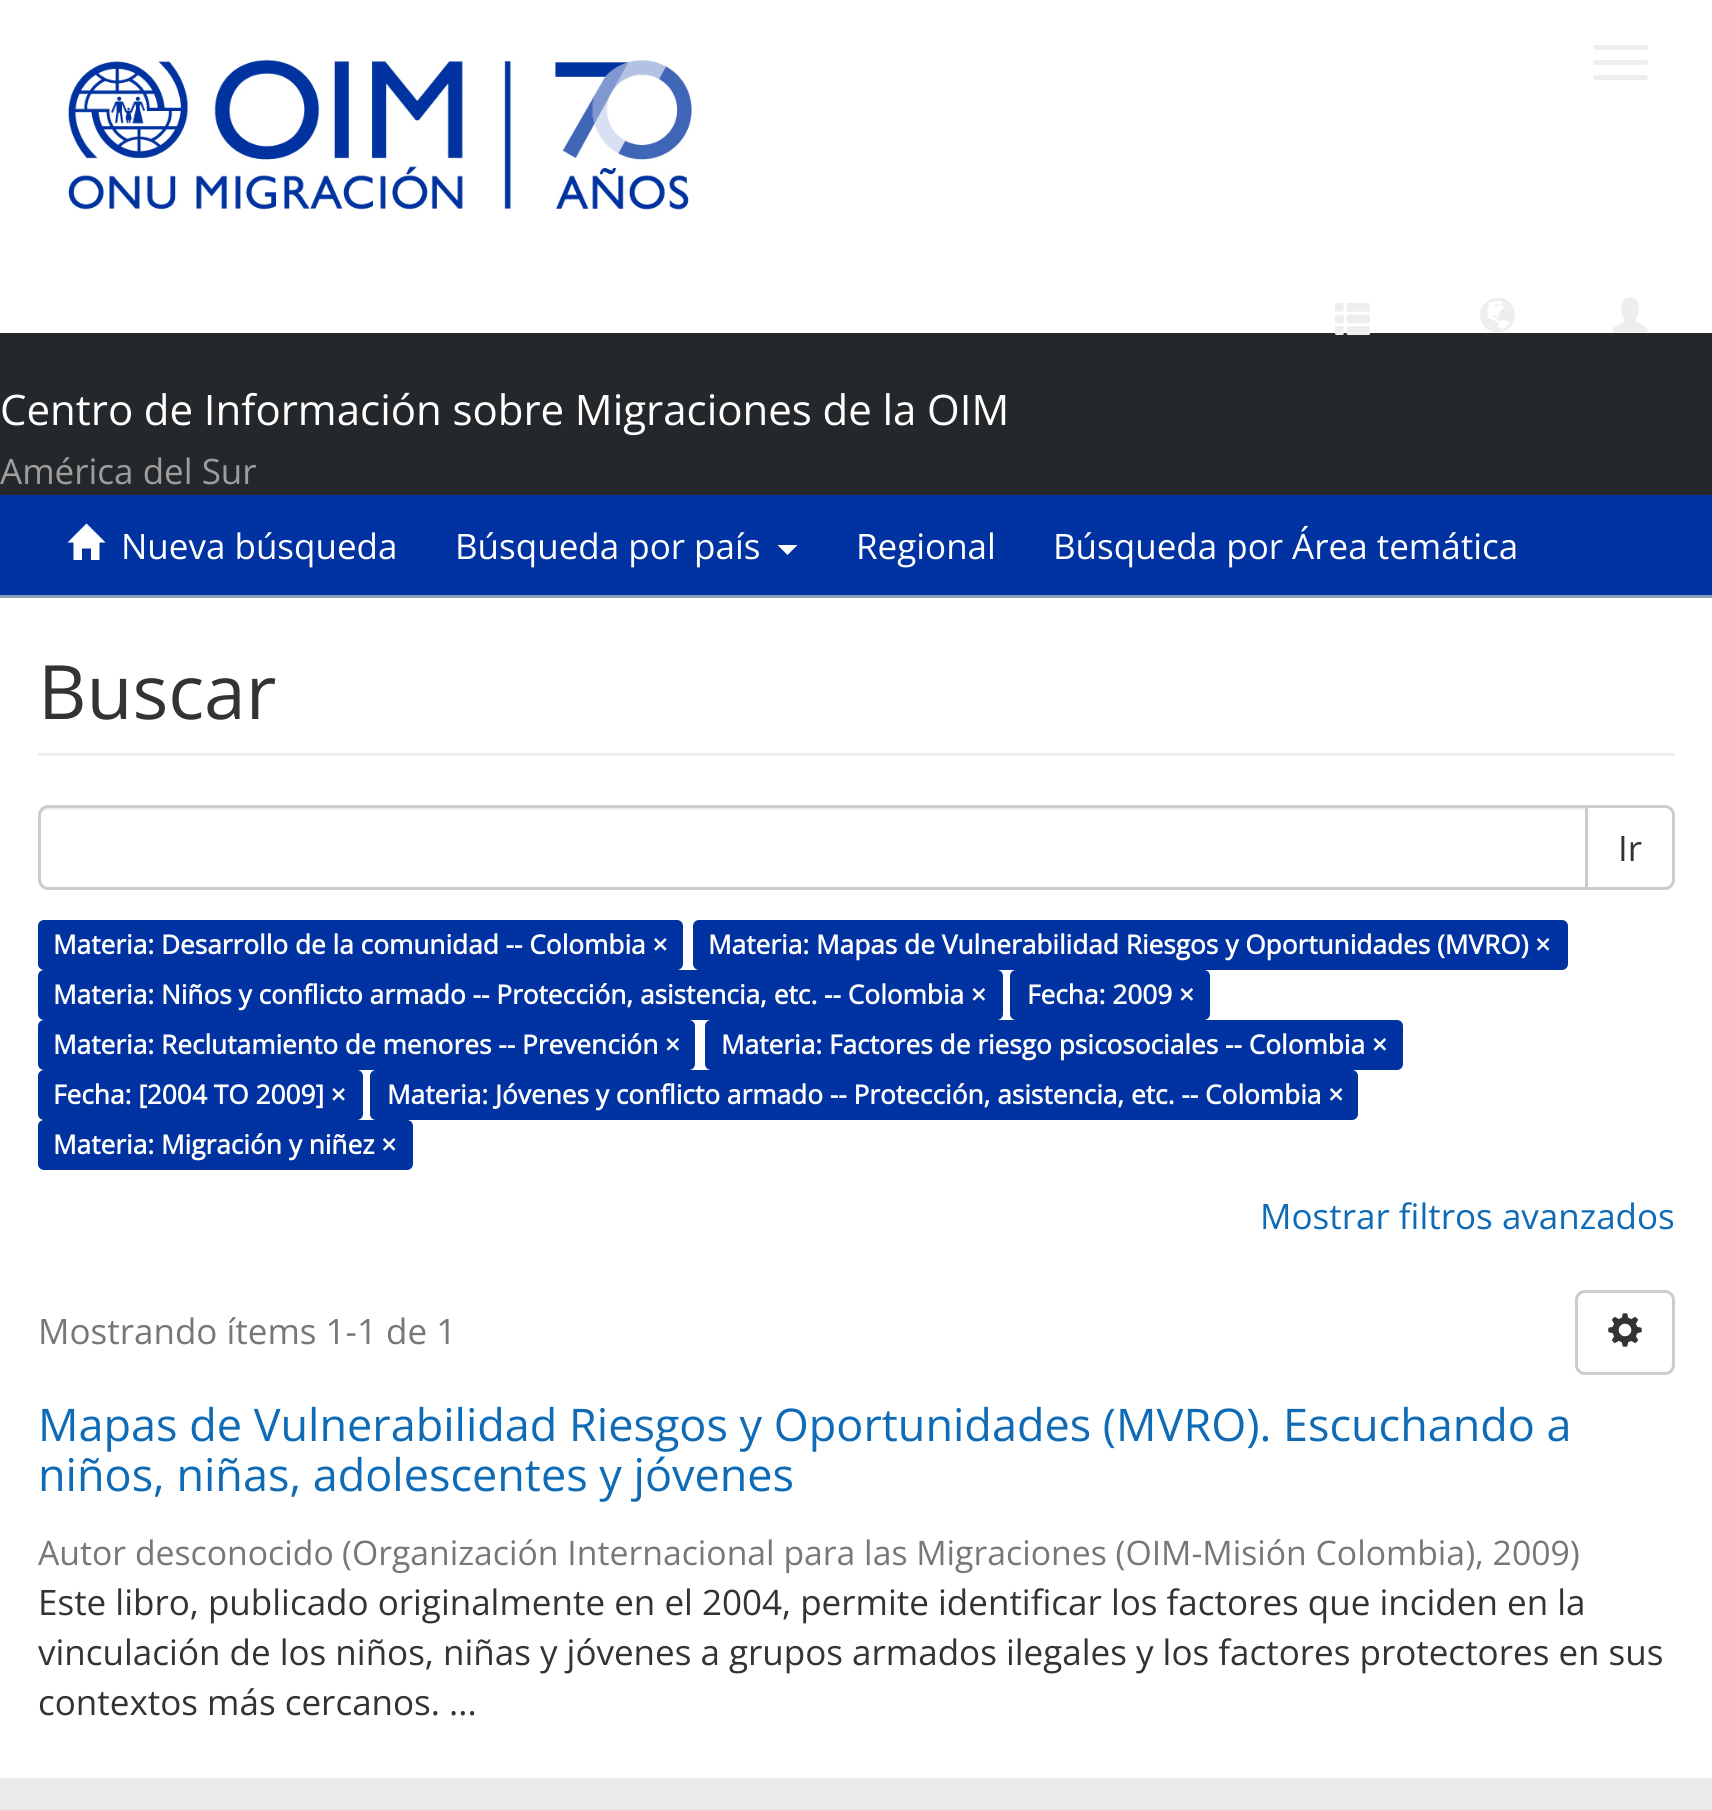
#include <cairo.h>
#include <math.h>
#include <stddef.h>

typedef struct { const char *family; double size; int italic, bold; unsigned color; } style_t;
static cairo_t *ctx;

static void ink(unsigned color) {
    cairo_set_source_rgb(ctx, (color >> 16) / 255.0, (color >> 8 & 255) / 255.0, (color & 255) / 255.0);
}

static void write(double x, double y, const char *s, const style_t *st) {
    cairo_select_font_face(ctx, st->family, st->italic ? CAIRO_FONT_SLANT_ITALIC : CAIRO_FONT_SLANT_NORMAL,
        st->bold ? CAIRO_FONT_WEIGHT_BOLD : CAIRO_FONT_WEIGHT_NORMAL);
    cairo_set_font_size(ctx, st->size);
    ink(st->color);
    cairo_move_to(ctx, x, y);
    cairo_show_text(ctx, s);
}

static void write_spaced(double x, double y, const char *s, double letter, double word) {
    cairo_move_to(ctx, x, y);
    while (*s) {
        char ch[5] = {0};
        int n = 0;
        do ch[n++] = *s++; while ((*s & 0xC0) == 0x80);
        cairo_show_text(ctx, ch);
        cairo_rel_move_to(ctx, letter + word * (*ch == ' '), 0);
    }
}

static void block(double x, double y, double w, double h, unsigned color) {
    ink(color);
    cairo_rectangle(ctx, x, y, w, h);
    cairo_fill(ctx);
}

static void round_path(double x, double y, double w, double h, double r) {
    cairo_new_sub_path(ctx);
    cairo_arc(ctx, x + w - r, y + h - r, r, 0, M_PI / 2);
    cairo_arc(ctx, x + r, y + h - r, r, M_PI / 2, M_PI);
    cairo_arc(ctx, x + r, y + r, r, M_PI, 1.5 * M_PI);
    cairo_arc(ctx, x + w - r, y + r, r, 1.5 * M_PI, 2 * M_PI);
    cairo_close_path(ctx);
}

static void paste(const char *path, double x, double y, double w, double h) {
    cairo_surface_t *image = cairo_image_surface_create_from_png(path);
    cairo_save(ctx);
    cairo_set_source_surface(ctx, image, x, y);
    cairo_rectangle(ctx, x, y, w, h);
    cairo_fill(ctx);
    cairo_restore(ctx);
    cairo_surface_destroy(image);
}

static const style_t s1 = {"Open Sans", 35, 0, 0, 0x9d9d9d};
static const style_t s2 = {"Open Sans", 35, 0, 0, 0xffffff};
static const style_t s3 = {"Open Sans", 75, 0, 0, 0x333333};
static const style_t s4 = {"Open Sans", 35, 0, 0, 0x333333};
static const style_t s5 = {"Open Sans", 26.25, 0, 1, 0xffffff};
static const style_t s6 = {"Open Sans", 35, 0, 0, 0x0f6bb5};
static const style_t s7 = {"Open Sans", 35, 0, 0, 0x777777};
static const style_t s8 = {"Open Sans", 45, 0, 0, 0x0f6bb5};
static const style_t s9 = {"Open Sans", 33.75, 0, 0, 0x777777};

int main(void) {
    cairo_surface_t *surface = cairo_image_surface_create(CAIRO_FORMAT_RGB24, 1712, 1810);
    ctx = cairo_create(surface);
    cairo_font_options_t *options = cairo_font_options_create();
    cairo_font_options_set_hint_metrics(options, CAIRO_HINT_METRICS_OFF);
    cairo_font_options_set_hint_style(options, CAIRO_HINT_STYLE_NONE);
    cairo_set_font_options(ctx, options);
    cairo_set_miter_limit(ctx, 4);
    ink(0xffffff);
    cairo_paint(ctx);
    block(0, 333, 1712, 162, 0x25282a);
    paste("pic1.png", 68, 59, 624, 151);
    ink(0xeeeeee);
    round_path(1593, 45, 55, 5, 2.5);
    cairo_fill(ctx);
    round_path(1593, 60, 55, 5, 2.5);
    cairo_fill(ctx);
    round_path(1593, 75, 55, 5, 2.5);
    cairo_fill(ctx);
    paste("pic2.png", 1335, 303, 35, 32);
    paste("pic3.png", 1480, 297, 35, 36);
    paste("pic4.png", 1612, 297, 36, 36);
    cairo_select_font_face(ctx, "Open Sans", CAIRO_FONT_SLANT_NORMAL, CAIRO_FONT_WEIGHT_NORMAL);
    cairo_set_font_size(ctx, 42);
    ink(0xffffff);
    write_spaced(0, 425, "Centro de Información sobre Migraciones de la OIM", 0, -0.25);
    write(0, 484, "América del Sur", &s1);
    block(0, 495, 1712, 100, 0x0033a1);
    block(0, 595, 1712, 3, 0x8b9eb2);
    ink(0xffffff);
    cairo_new_path(ctx);
    cairo_move_to(ctx, 67.5, 542.5);
    cairo_line_to(ctx, 86.5, 523.5);
    cairo_line_to(ctx, 105.5, 542.5);
    cairo_line_to(ctx, 99.5, 542.5);
    cairo_line_to(ctx, 99.5, 560);
    cairo_line_to(ctx, 91, 560);
    cairo_line_to(ctx, 91, 548.5);
    cairo_line_to(ctx, 82, 548.5);
    cairo_line_to(ctx, 82, 560);
    cairo_line_to(ctx, 73.5, 560);
    cairo_line_to(ctx, 73.5, 542.5);
    cairo_close_path(ctx);
    cairo_fill(ctx);
    write(121, 559, "Nueva búsqueda", &s2);
    write(455, 559, "Búsqueda por país", &s2);
    cairo_new_path(ctx);
    cairo_move_to(ctx, 777.5, 545);
    cairo_line_to(ctx, 797.5, 545);
    cairo_line_to(ctx, 787.5, 555);
    cairo_close_path(ctx);
    cairo_fill(ctx);
    write(856, 559, "Regional", &s2);
    write(1053, 559, "Búsqueda por Área temática", &s2);
    block(38, 753, 1637, 3, 0xeeeeee);
    write(38, 719, "Buscar", &s3);
    cairo_new_path(ctx);
    cairo_move_to(ctx, 1586.5, 806.5);
    cairo_line_to(ctx, 1665, 806.5);
    cairo_curve_to(ctx, 1669.5, 806.5, 1673.5, 810.5, 1673.5, 815);
    cairo_line_to(ctx, 1673.5, 880);
    cairo_curve_to(ctx, 1673.5, 884.5, 1669.5, 888.5, 1665, 888.5);
    cairo_line_to(ctx, 1586.5, 888.5);
    cairo_close_path(ctx);
    ink(0xcccccc);
    cairo_set_line_width(ctx, 3);
    cairo_stroke(ctx);
    ink(0xffffff);
    cairo_new_path(ctx);
    cairo_move_to(ctx, 48, 805);
    cairo_line_to(ctx, 1588, 805);
    cairo_line_to(ctx, 1588, 890);
    cairo_line_to(ctx, 48, 890);
    cairo_curve_to(ctx, 42.5, 890, 38, 885.5, 38, 880);
    cairo_line_to(ctx, 38, 815);
    cairo_curve_to(ctx, 38, 809.5, 42.5, 805, 48, 805);
    cairo_close_path(ctx);
    cairo_fill(ctx);
    ink(0xececec);
    cairo_new_path(ctx);
    cairo_move_to(ctx, 48, 810);
    cairo_line_to(ctx, 1585, 810);
    cairo_line_to(ctx, 1585, 808);
    cairo_line_to(ctx, 48, 808);
    cairo_curve_to(ctx, 44, 808, 40, 812, 40, 816);
    cairo_line_to(ctx, 40, 818);
    cairo_curve_to(ctx, 40, 813, 43, 810, 48, 810);
    cairo_close_path(ctx);
    cairo_fill(ctx);
    cairo_new_path(ctx);
    cairo_move_to(ctx, 48, 806.5);
    cairo_line_to(ctx, 1586.5, 806.5);
    cairo_line_to(ctx, 1586.5, 888.5);
    cairo_line_to(ctx, 48, 888.5);
    cairo_curve_to(ctx, 43.5, 888.5, 39.5, 884.5, 39.5, 880);
    cairo_line_to(ctx, 39.5, 815);
    cairo_curve_to(ctx, 39.5, 810.5, 43.5, 806.5, 48, 806.5);
    cairo_close_path(ctx);
    ink(0xcccccc);
    cairo_stroke(ctx);
    write(1618, 861, "Ir", &s4);
    ink(0x0033a1);
    round_path(38, 920, 645, 50, 6);
    cairo_fill(ctx);
    write(53, 954, "Materia: Desarrollo de la comunidad -- Colombia ×", &s5);
    ink(0x0033a1);
    round_path(693, 920, 875, 50, 6);
    cairo_fill(ctx);
    write(708, 954, "Materia: Mapas de Vulnerabilidad Riesgos y Oportunidades (MVRO) ×", &s5);
    ink(0x0033a1);
    round_path(38, 970, 965, 50, 6);
    cairo_fill(ctx);
    write(53, 1004, "Materia: Niños y conflicto armado -- Protección, asistencia, etc. -- Colombia ×", &s5);
    ink(0x0033a1);
    round_path(1010, 970, 200, 50, 6);
    cairo_fill(ctx);
    write(1027, 1004, "Fecha: 2009 ×", &s5);
    ink(0x0033a1);
    round_path(38, 1020, 657, 50, 6);
    cairo_fill(ctx);
    write(53, 1054, "Materia: Reclutamiento de menores -- Prevención ×", &s5);
    ink(0x0033a1);
    round_path(705, 1020, 698, 50, 6);
    cairo_fill(ctx);
    write(721, 1054, "Materia: Factores de riesgo psicosociales -- Colombia ×", &s5);
    ink(0x0033a1);
    round_path(38, 1070, 325, 50, 6);
    cairo_fill(ctx);
    write(53, 1104, "Fecha: [2004 TO 2009] ×", &s5);
    ink(0x0033a1);
    round_path(370, 1070, 988, 50, 6);
    cairo_fill(ctx);
    write(387, 1104, "Materia: Jóvenes y conflicto armado -- Protección, asistencia, etc. -- Colombia ×", &s5);
    ink(0x0033a1);
    round_path(38, 1120, 375, 50, 6);
    cairo_fill(ctx);
    write(53, 1154, "Materia: Migración y niñez ×", &s5);
    write(1260, 1229, "Mostrar filtros avanzados", &s6);
    write(38, 1344, "Mostrando ítems 1-1 de 1", &s7);
    round_path(1576.5, 1291.5, 97, 82, 8.5);
    ink(0xcccccc);
    cairo_stroke(ctx);
    paste("pic5.png", 1608, 1313, 34, 34);
    write(38, 1441, "Mapas de Vulnerabilidad Riesgos y Oportunidades (MVRO). Escuchando a", &s8);
    write(38, 1491, "niños, niñas, adolescentes y jóvenes", &s8);
    write(38, 1565, "Autor desconocido", &s9);
    write(342, 1565, "(Organización Internacional para las Migraciones (OIM-Misión Colombia), 2009)", &s9);
    write(38, 1615, "Este libro, publicado originalmente en el 2004, permite identificar los factores que inciden en la", &s4);
    write(38, 1665, "vinculación de los niños, niñas y jóvenes a grupos armados ilegales y los factores protectores en sus", &s4);
    write(38, 1715, "contextos más cercanos. ...", &s4);
    block(0, 1778, 1712, 32, 0xeaeaea);
    cairo_surface_write_to_png(surface, "screenshot.png");
    cairo_font_options_destroy(options);
    cairo_destroy(ctx);
    cairo_surface_destroy(surface);
    return 0;
}
